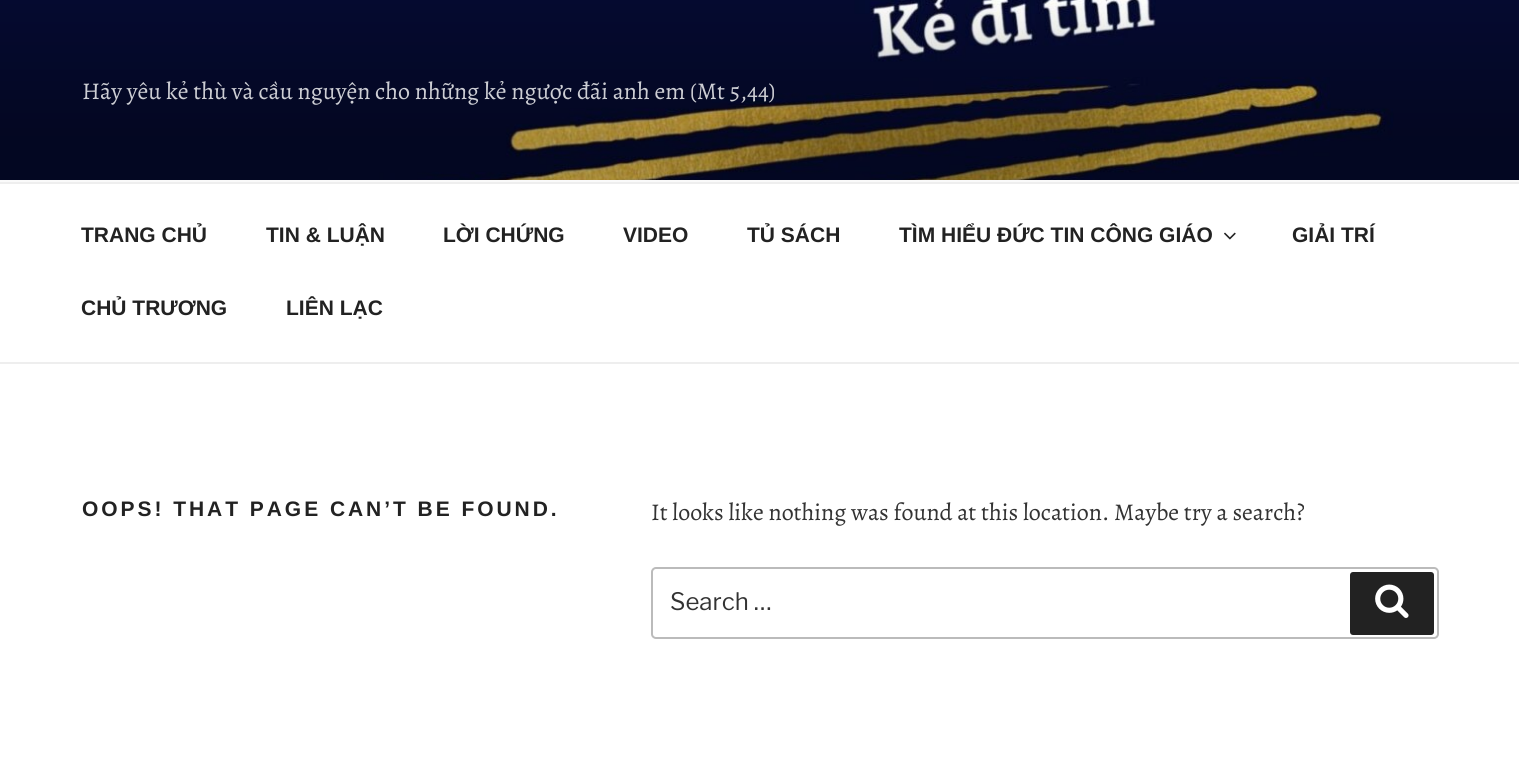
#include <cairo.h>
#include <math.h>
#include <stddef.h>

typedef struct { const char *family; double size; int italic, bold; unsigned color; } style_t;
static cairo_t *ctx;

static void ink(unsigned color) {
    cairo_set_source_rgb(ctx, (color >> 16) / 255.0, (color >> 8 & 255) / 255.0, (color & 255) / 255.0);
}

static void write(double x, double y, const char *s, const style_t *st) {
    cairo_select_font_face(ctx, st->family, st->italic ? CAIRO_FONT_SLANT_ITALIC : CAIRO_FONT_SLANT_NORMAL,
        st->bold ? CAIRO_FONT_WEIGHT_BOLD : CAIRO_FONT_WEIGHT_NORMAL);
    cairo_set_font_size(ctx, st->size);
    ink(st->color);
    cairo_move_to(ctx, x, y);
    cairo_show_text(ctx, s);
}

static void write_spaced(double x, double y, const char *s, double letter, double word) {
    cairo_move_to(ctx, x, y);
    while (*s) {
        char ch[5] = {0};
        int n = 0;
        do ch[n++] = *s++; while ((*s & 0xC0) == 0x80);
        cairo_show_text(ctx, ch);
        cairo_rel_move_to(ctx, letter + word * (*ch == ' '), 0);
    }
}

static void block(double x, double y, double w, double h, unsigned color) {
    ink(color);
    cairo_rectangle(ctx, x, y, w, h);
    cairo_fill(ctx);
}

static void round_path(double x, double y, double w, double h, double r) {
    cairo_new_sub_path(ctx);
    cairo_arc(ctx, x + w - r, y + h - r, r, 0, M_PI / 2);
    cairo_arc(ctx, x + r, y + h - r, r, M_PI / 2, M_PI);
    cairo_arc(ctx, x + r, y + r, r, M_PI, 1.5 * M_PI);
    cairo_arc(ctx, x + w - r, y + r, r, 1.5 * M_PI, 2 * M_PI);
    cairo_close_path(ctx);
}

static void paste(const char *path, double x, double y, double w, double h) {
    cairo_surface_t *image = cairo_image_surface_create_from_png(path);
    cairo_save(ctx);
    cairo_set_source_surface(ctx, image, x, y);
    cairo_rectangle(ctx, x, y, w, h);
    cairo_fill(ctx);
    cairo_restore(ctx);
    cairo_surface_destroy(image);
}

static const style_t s1 = {"Alegreya", 24, 0, 0, 0xcdced4};
static const style_t s2 = {"Liberation Sans", 21, 0, 1, 0x222222};
static const style_t s3 = {"Alegreya", 24, 0, 0, 0x333333};
static const style_t s4 = {"Libre Franklin Thin", 24, 0, 0, 0x333333};

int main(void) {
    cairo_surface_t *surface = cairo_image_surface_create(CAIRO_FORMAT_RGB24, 1519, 782);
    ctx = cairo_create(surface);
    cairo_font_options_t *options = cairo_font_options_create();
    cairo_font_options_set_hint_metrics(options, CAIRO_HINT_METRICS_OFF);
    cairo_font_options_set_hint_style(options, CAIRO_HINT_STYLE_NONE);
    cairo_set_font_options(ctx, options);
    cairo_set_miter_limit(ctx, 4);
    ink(0xffffff);
    cairo_paint(ctx);
    block(0, 180, 1519, 2, 0xfafafa);
    paste("pic1.png", 0, 0, 1519, 180);
    write(82, 99, "Hãy yêu kẻ thù và cầu nguyện cho những kẻ ngược đãi anh em (Mt 5,44)", &s1);
    block(0, 182, 1519, 2, 0xeeeeee);
    block(0, 362, 1519, 2, 0xeeeeee);
    write(81, 242, "TRANG CHỦ", &s2);
    write(266, 242, "TIN & LUẬN", &s2);
    write(443, 242, "LỜI CHỨNG", &s2);
    write(623, 242, "VIDEO", &s2);
    write(747, 242, "TỦ SÁCH", &s2);
    write(899, 242, "TÌM HIỂU ĐỨC TIN CÔNG GIÁO", &s2);
    paste("pic2.png", 1224, 232, 12, 8);
    write(1292, 242, "GIẢI TRÍ", &s2);
    write(81, 315, "CHỦ TRƯƠNG", &s2);
    write(286, 315, "LIÊN LẠC", &s2);
    write_spaced(82, 516, "OOPS! THAT PAGE CAN’T BE FOUND.", 2.95, 0);
    write(651, 520, "It looks like nothing was found at this location. Maybe try a search?", &s3);
    round_path(652, 568, 786, 70, 4);
    ink(0xbbbbbb);
    cairo_stroke(ctx);
    write(670, 610, "Search …", &s4);
    ink(0x222222);
    round_path(1350, 572, 84, 63, 3);
    cairo_fill(ctx);
    paste("pic3.png", 1375, 584, 34, 34);
    cairo_surface_write_to_png(surface, "screenshot.png");
    cairo_font_options_destroy(options);
    cairo_destroy(ctx);
    cairo_surface_destroy(surface);
    return 0;
}
